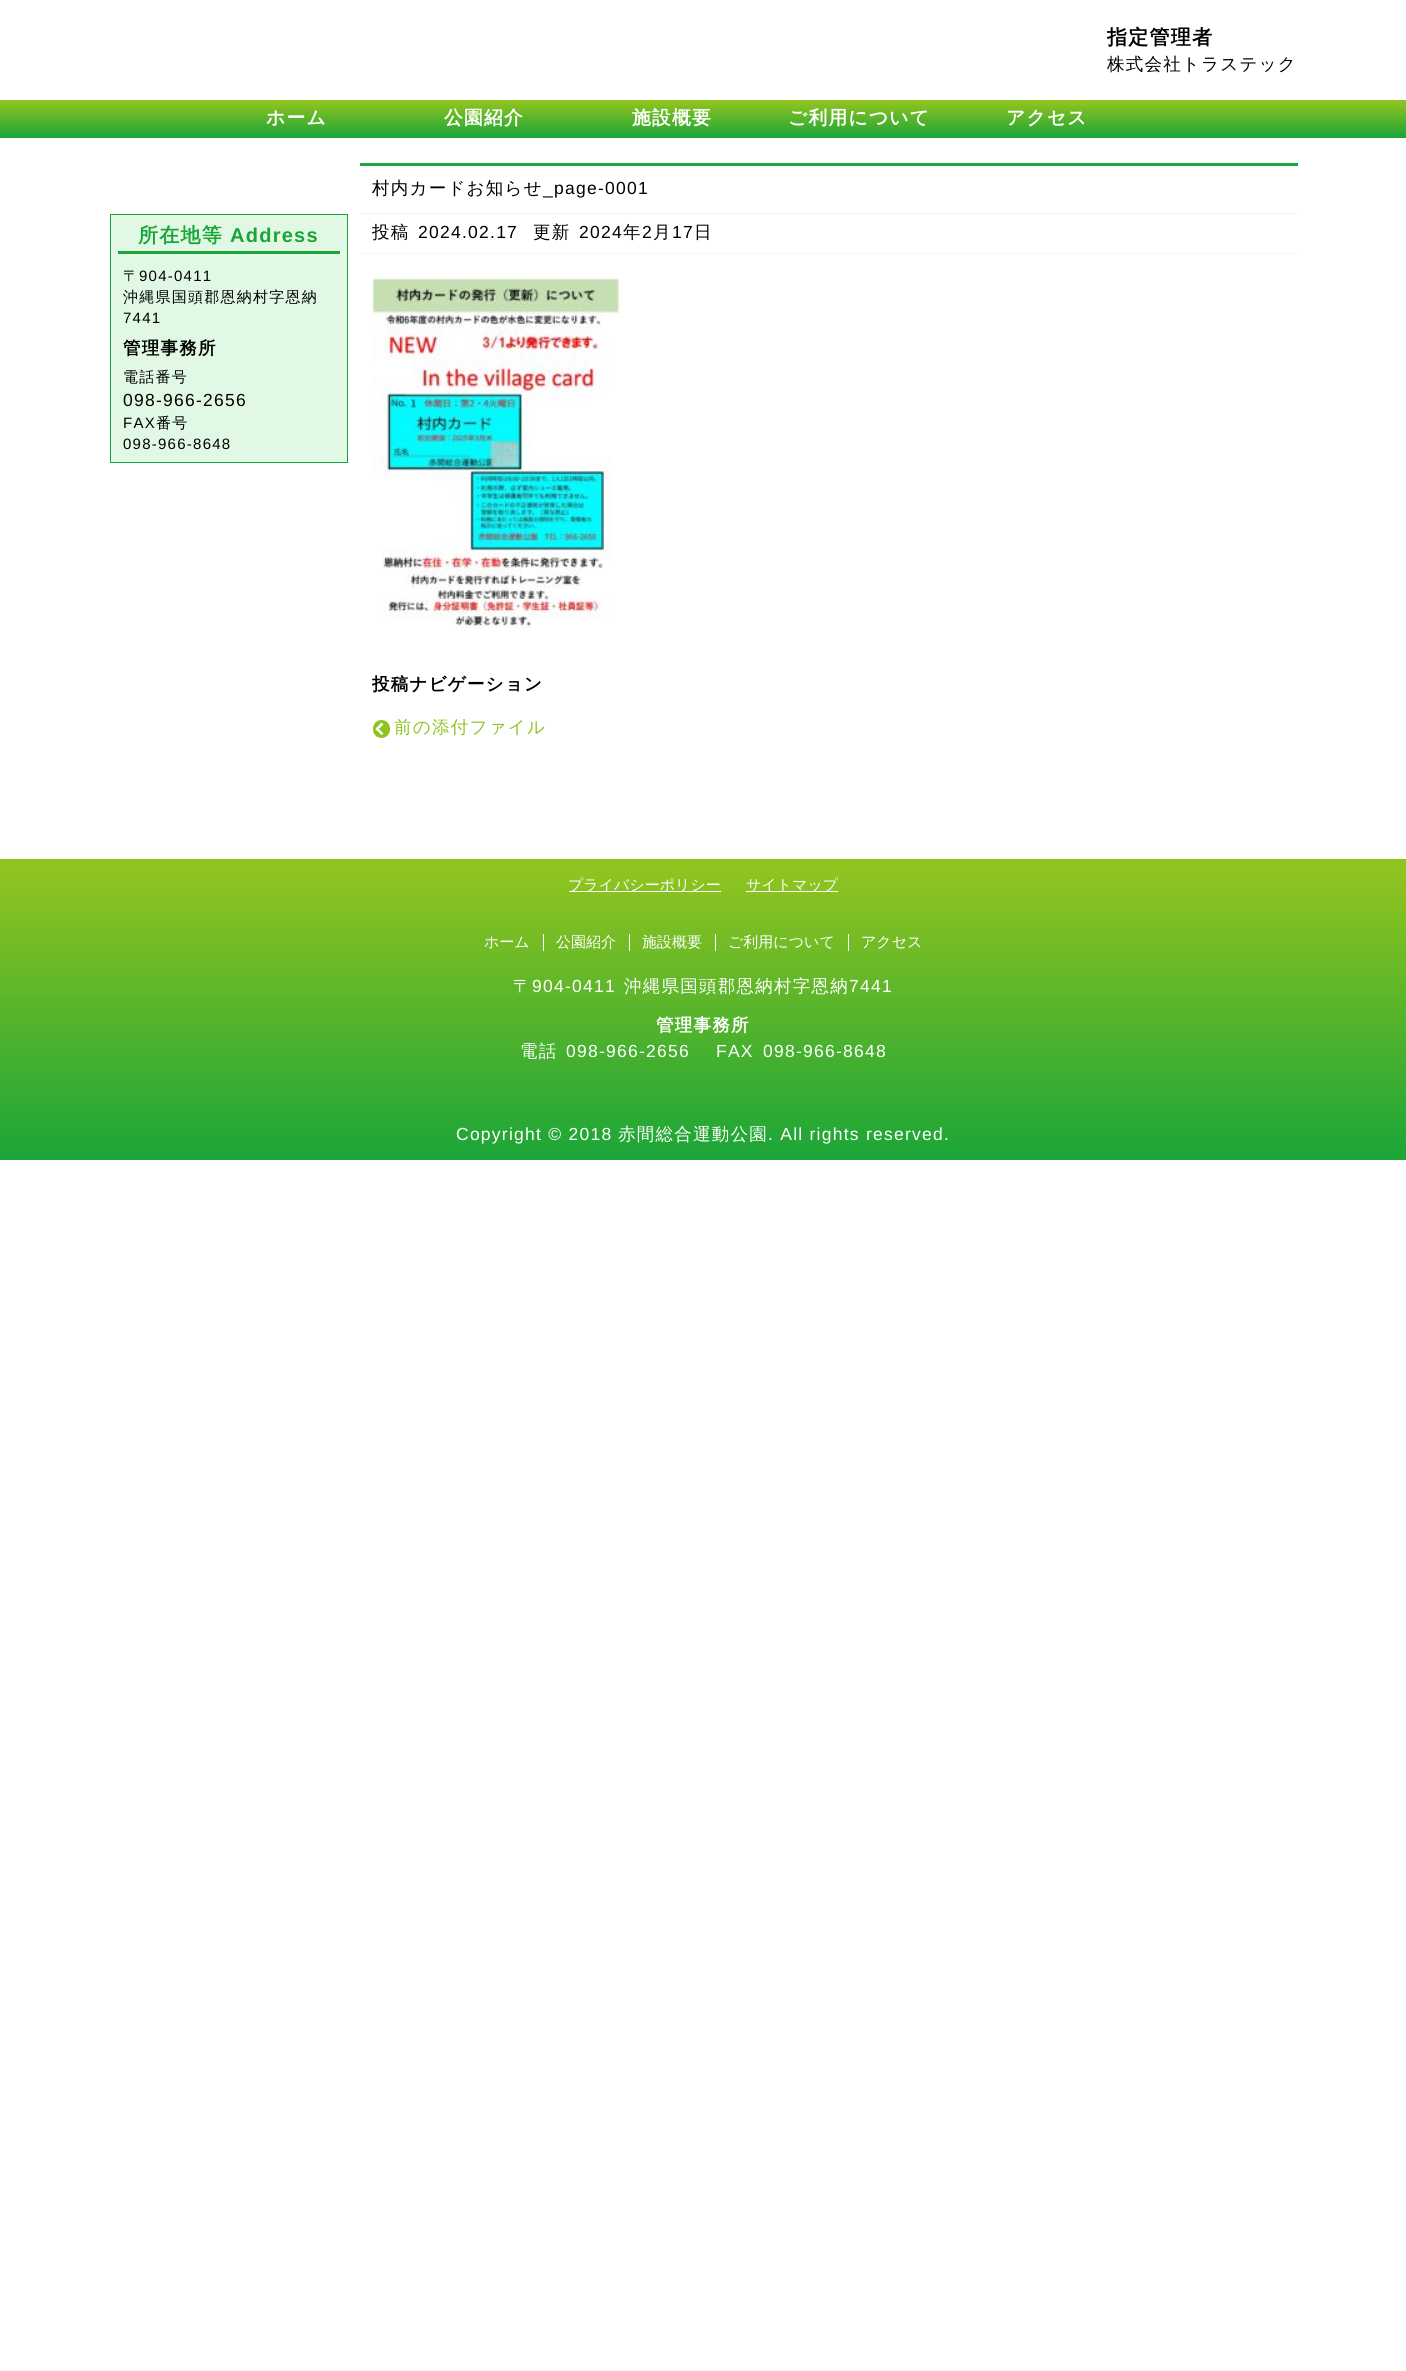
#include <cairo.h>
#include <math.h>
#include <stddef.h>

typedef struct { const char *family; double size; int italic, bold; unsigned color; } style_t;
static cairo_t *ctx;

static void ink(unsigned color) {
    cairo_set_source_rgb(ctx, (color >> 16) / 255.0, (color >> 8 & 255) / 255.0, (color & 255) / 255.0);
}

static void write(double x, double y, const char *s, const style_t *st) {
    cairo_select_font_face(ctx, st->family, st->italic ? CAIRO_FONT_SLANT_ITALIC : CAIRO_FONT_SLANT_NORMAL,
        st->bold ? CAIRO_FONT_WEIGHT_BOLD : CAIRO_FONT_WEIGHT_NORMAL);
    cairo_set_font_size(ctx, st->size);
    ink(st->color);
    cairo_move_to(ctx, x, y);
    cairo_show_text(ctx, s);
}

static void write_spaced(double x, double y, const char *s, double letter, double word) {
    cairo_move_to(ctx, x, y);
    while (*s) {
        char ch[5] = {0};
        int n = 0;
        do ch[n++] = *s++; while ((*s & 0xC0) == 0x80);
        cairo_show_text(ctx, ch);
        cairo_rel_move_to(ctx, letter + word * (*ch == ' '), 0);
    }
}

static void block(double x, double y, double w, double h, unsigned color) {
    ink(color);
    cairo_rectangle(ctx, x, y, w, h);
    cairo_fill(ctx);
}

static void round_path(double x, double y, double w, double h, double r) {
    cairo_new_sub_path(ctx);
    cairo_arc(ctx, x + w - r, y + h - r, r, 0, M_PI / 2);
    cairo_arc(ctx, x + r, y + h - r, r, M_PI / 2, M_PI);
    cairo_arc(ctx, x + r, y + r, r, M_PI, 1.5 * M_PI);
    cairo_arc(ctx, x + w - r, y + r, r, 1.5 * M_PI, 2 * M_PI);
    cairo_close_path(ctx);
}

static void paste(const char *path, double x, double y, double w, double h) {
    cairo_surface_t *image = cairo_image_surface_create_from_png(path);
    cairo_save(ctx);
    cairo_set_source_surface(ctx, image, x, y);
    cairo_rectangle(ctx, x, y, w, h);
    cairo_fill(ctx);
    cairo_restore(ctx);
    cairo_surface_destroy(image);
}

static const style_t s1 = {"WenQuanYi Zen Hei Medium", 15, 0, 0, 0xffffff};

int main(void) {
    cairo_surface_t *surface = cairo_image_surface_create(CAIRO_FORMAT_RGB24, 1406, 2371);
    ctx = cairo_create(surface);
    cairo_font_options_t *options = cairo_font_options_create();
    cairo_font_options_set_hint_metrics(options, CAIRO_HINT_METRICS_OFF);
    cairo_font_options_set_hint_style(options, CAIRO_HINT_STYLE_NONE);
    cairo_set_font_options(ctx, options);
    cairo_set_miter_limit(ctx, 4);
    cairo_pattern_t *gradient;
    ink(0xffffff);
    cairo_paint(ctx);
    cairo_select_font_face(ctx, "WenQuanYi Zen Hei", CAIRO_FONT_SLANT_NORMAL, CAIRO_FONT_WEIGHT_BOLD);
    cairo_set_font_size(ctx, 20);
    ink(0x000000);
    write_spaced(1107, 44, "指定管理者", 1.25, 0);
    cairo_select_font_face(ctx, "WenQuanYi Zen Hei Medium", CAIRO_FONT_SLANT_NORMAL, CAIRO_FONT_WEIGHT_NORMAL);
    cairo_set_font_size(ctx, 17.5);
    write_spaced(1107, 70, "株式会社トラステック", 1.25, 0);
    gradient = cairo_pattern_create_linear(703, 100, 703, 138);
    cairo_pattern_add_color_stop_rgba(gradient, 0.05, 0.561, 0.765, 0.125, 1);
    cairo_pattern_add_color_stop_rgba(gradient, 1, 0.106, 0.647, 0.22, 1);
    cairo_set_source(ctx, gradient);
    cairo_pattern_destroy(gradient);
    cairo_rectangle(ctx, 0, 100, 1406, 38);
    cairo_fill(ctx);
    cairo_select_font_face(ctx, "WenQuanYi Zen Hei", CAIRO_FONT_SLANT_NORMAL, CAIRO_FONT_WEIGHT_BOLD);
    cairo_set_font_size(ctx, 18.75);
    ink(0xffffff);
    write_spaced(266, 124, "ホーム", 1.25, 0);
    write_spaced(444, 124, "公園紹介", 1.25, 0);
    write_spaced(632, 124, "施設概要", 1.25, 0);
    write_spaced(788, 124, "ご利用について", 1.25, 0);
    write_spaced(1006, 124, "アクセス", 1.25, 0);
    ink(0xe1f9e4);
    cairo_rectangle(ctx, 110.5, 214.5, 237, 248);
    cairo_fill_preserve(ctx);
    ink(0x1ba538);
    cairo_set_line_width(ctx, 1);
    cairo_stroke(ctx);
    block(118, 251, 222, 3, 0x1ba538);
    cairo_set_font_size(ctx, 20);
    write_spaced(138, 242, "所在地等", 1.25, 0);
    cairo_select_font_face(ctx, "Liberation Sans", CAIRO_FONT_SLANT_NORMAL, CAIRO_FONT_WEIGHT_BOLD);
    write_spaced(230, 242, "Address", 1.25, 0);
    cairo_select_font_face(ctx, "WenQuanYi Zen Hei Medium", CAIRO_FONT_SLANT_NORMAL, CAIRO_FONT_WEIGHT_NORMAL);
    cairo_set_font_size(ctx, 15);
    ink(0x000000);
    write_spaced(123, 281, "〒", 1.25, 0);
    cairo_select_font_face(ctx, "Liberation Sans", CAIRO_FONT_SLANT_NORMAL, CAIRO_FONT_WEIGHT_NORMAL);
    write_spaced(139, 281, "904-0411", 1.25, 0);
    cairo_select_font_face(ctx, "WenQuanYi Zen Hei Medium", CAIRO_FONT_SLANT_NORMAL, CAIRO_FONT_WEIGHT_NORMAL);
    write_spaced(123, 302, "沖縄県国頭郡恩納村字恩納", 1.25, 0);
    cairo_select_font_face(ctx, "Liberation Sans", CAIRO_FONT_SLANT_NORMAL, CAIRO_FONT_WEIGHT_NORMAL);
    write_spaced(123, 323, "7441", 1.25, 0);
    cairo_select_font_face(ctx, "WenQuanYi Zen Hei", CAIRO_FONT_SLANT_NORMAL, CAIRO_FONT_WEIGHT_BOLD);
    cairo_set_font_size(ctx, 17.5);
    write_spaced(123, 354, "管理事務所", 1.25, 0);
    cairo_select_font_face(ctx, "WenQuanYi Zen Hei Medium", CAIRO_FONT_SLANT_NORMAL, CAIRO_FONT_WEIGHT_NORMAL);
    cairo_set_font_size(ctx, 15);
    write_spaced(123, 382, "電話番号", 1.25, 0);
    cairo_select_font_face(ctx, "Liberation Sans", CAIRO_FONT_SLANT_NORMAL, CAIRO_FONT_WEIGHT_NORMAL);
    cairo_set_font_size(ctx, 17.5);
    write_spaced(123, 406, "098-966-2656", 1.25, 0);
    cairo_set_font_size(ctx, 15);
    write_spaced(123, 428, "FAX", 1.25, 0);
    cairo_select_font_face(ctx, "WenQuanYi Zen Hei Medium", CAIRO_FONT_SLANT_NORMAL, CAIRO_FONT_WEIGHT_NORMAL);
    write_spaced(156, 428, "番号", 1.25, 0);
    cairo_select_font_face(ctx, "Liberation Sans", CAIRO_FONT_SLANT_NORMAL, CAIRO_FONT_WEIGHT_NORMAL);
    write_spaced(123, 449, "098-966-8648", 1.25, 0);
    block(360, 163, 938, 3, 0x1ba538);
    block(360, 213, 938, 1, 0xf0f0f0);
    cairo_select_font_face(ctx, "WenQuanYi Zen Hei Medium", CAIRO_FONT_SLANT_NORMAL, CAIRO_FONT_WEIGHT_NORMAL);
    cairo_set_font_size(ctx, 17.5);
    ink(0x000000);
    write_spaced(372, 194, "村内カードお知らせ", 1.25, 0);
    cairo_select_font_face(ctx, "Liberation Sans", CAIRO_FONT_SLANT_NORMAL, CAIRO_FONT_WEIGHT_NORMAL);
    write_spaced(543, 194, "_page-0001", 1.25, 0);
    block(360, 253, 938, 1, 0xf7f7f7);
    cairo_select_font_face(ctx, "WenQuanYi Zen Hei Medium", CAIRO_FONT_SLANT_NORMAL, CAIRO_FONT_WEIGHT_NORMAL);
    ink(0x000000);
    write_spaced(372, 238, "投稿", 1.25, 0);
    cairo_select_font_face(ctx, "Liberation Sans", CAIRO_FONT_SLANT_NORMAL, CAIRO_FONT_WEIGHT_NORMAL);
    write_spaced(418, 238, "2024.02.17", 1.25, 0);
    cairo_select_font_face(ctx, "WenQuanYi Zen Hei Medium", CAIRO_FONT_SLANT_NORMAL, CAIRO_FONT_WEIGHT_NORMAL);
    write_spaced(533, 238, "更新", 1.25, 0);
    cairo_select_font_face(ctx, "Liberation Sans", CAIRO_FONT_SLANT_NORMAL, CAIRO_FONT_WEIGHT_NORMAL);
    write_spaced(579, 238, "2024", 1.25, 0);
    cairo_select_font_face(ctx, "WenQuanYi Zen Hei Medium", CAIRO_FONT_SLANT_NORMAL, CAIRO_FONT_WEIGHT_NORMAL);
    write_spaced(623, 238, "年", 1.25, 0);
    cairo_select_font_face(ctx, "Liberation Sans", CAIRO_FONT_SLANT_NORMAL, CAIRO_FONT_WEIGHT_NORMAL);
    write_spaced(642, 238, "2", 1.25, 0);
    cairo_select_font_face(ctx, "WenQuanYi Zen Hei Medium", CAIRO_FONT_SLANT_NORMAL, CAIRO_FONT_WEIGHT_NORMAL);
    write_spaced(653, 238, "月", 1.25, 0);
    cairo_select_font_face(ctx, "Liberation Sans", CAIRO_FONT_SLANT_NORMAL, CAIRO_FONT_WEIGHT_NORMAL);
    write_spaced(672, 238, "17", 1.25, 0);
    cairo_select_font_face(ctx, "WenQuanYi Zen Hei Medium", CAIRO_FONT_SLANT_NORMAL, CAIRO_FONT_WEIGHT_NORMAL);
    write_spaced(694, 238, "日", 1.25, 0);
    paste("pic1.png", 372, 278, 251, 351);
    cairo_select_font_face(ctx, "WenQuanYi Zen Hei", CAIRO_FONT_SLANT_NORMAL, CAIRO_FONT_WEIGHT_BOLD);
    write_spaced(372, 690, "投稿ナビゲーション", 1.25, 0);
    ink(0x8fc320);
    round_path(373, 720, 17, 18, 8.5);
    cairo_fill(ctx);
    ink(0xffffff);
    cairo_new_path(ctx);
    cairo_move_to(ctx, 375.5, 729);
    cairo_line_to(ctx, 381.5, 722.5);
    cairo_line_to(ctx, 383.5, 724.5);
    cairo_line_to(ctx, 377, 730.5);
    cairo_close_path(ctx);
    cairo_fill(ctx);
    cairo_new_path(ctx);
    cairo_move_to(ctx, 375.5, 729);
    cairo_line_to(ctx, 377, 727);
    cairo_line_to(ctx, 383.5, 733.5);
    cairo_line_to(ctx, 381.5, 735);
    cairo_close_path(ctx);
    cairo_fill(ctx);
    cairo_select_font_face(ctx, "WenQuanYi Zen Hei Medium", CAIRO_FONT_SLANT_NORMAL, CAIRO_FONT_WEIGHT_NORMAL);
    ink(0x8fc320);
    write_spaced(394, 733, "前の添付ファイル", 1.25, 0);
    gradient = cairo_pattern_create_linear(703, 859, 703, 1160);
    cairo_pattern_add_color_stop_rgba(gradient, 0.05, 0.561, 0.765, 0.125, 1);
    cairo_pattern_add_color_stop_rgba(gradient, 1, 0.106, 0.647, 0.22, 1);
    cairo_set_source(ctx, gradient);
    cairo_pattern_destroy(gradient);
    cairo_rectangle(ctx, 0, 859, 1406, 301);
    cairo_fill(ctx);
    block(569, 891, 152, 1, 0xffffff);
    write(568, 890, "プライバシーポリシー", &s1);
    block(746, 891, 92, 1, 0xffffff);
    write(746, 890, "サイトマップ", &s1);
    write(484, 947, "ホーム", &s1);
    write(556, 947, "公園紹介", &s1);
    block(543, 934, 1, 17, 0xffffff);
    write(642, 947, "施設概要", &s1);
    block(629, 934, 1, 17, 0xffffff);
    write(728, 947, "ご利用について", &s1);
    block(715, 934, 1, 17, 0xffffff);
    write(861, 947, "アクセス", &s1);
    block(848, 934, 1, 17, 0xffffff);
    cairo_set_font_size(ctx, 17.5);
    write_spaced(513, 992, "〒", 1.25, 0);
    cairo_select_font_face(ctx, "Liberation Sans", CAIRO_FONT_SLANT_NORMAL, CAIRO_FONT_WEIGHT_NORMAL);
    write_spaced(532, 992, "904-0411", 1.25, 0);
    cairo_select_font_face(ctx, "WenQuanYi Zen Hei Medium", CAIRO_FONT_SLANT_NORMAL, CAIRO_FONT_WEIGHT_NORMAL);
    write_spaced(624, 992, "沖縄県国頭郡恩納村字恩納", 1.25, 0);
    cairo_select_font_face(ctx, "Liberation Sans", CAIRO_FONT_SLANT_NORMAL, CAIRO_FONT_WEIGHT_NORMAL);
    write_spaced(849, 992, "7441", 1.25, 0);
    cairo_select_font_face(ctx, "WenQuanYi Zen Hei", CAIRO_FONT_SLANT_NORMAL, CAIRO_FONT_WEIGHT_BOLD);
    write_spaced(656, 1031, "管理事務所", 1.25, 0);
    cairo_select_font_face(ctx, "WenQuanYi Zen Hei Medium", CAIRO_FONT_SLANT_NORMAL, CAIRO_FONT_WEIGHT_NORMAL);
    write_spaced(520, 1057, "電話", 1.25, 0);
    cairo_select_font_face(ctx, "Liberation Sans", CAIRO_FONT_SLANT_NORMAL, CAIRO_FONT_WEIGHT_NORMAL);
    write_spaced(566, 1057, "098-966-2656", 1.25, 0);
    write_spaced(716, 1057, "FAX", 1.25, 0);
    write_spaced(763, 1057, "098-966-8648", 1.25, 0);
    write_spaced(456, 1140, "Copyright © 2018", 1.25, 0);
    cairo_select_font_face(ctx, "WenQuanYi Zen Hei Medium", CAIRO_FONT_SLANT_NORMAL, CAIRO_FONT_WEIGHT_NORMAL);
    write_spaced(618, 1140, "赤間総合運動公園", 1.25, 0);
    cairo_select_font_face(ctx, "Liberation Sans", CAIRO_FONT_SLANT_NORMAL, CAIRO_FONT_WEIGHT_NORMAL);
    write_spaced(768, 1140, ". All rights reserved.", 1.25, 0);
    cairo_surface_write_to_png(surface, "screenshot.png");
    cairo_font_options_destroy(options);
    cairo_destroy(ctx);
    cairo_surface_destroy(surface);
    return 0;
}
